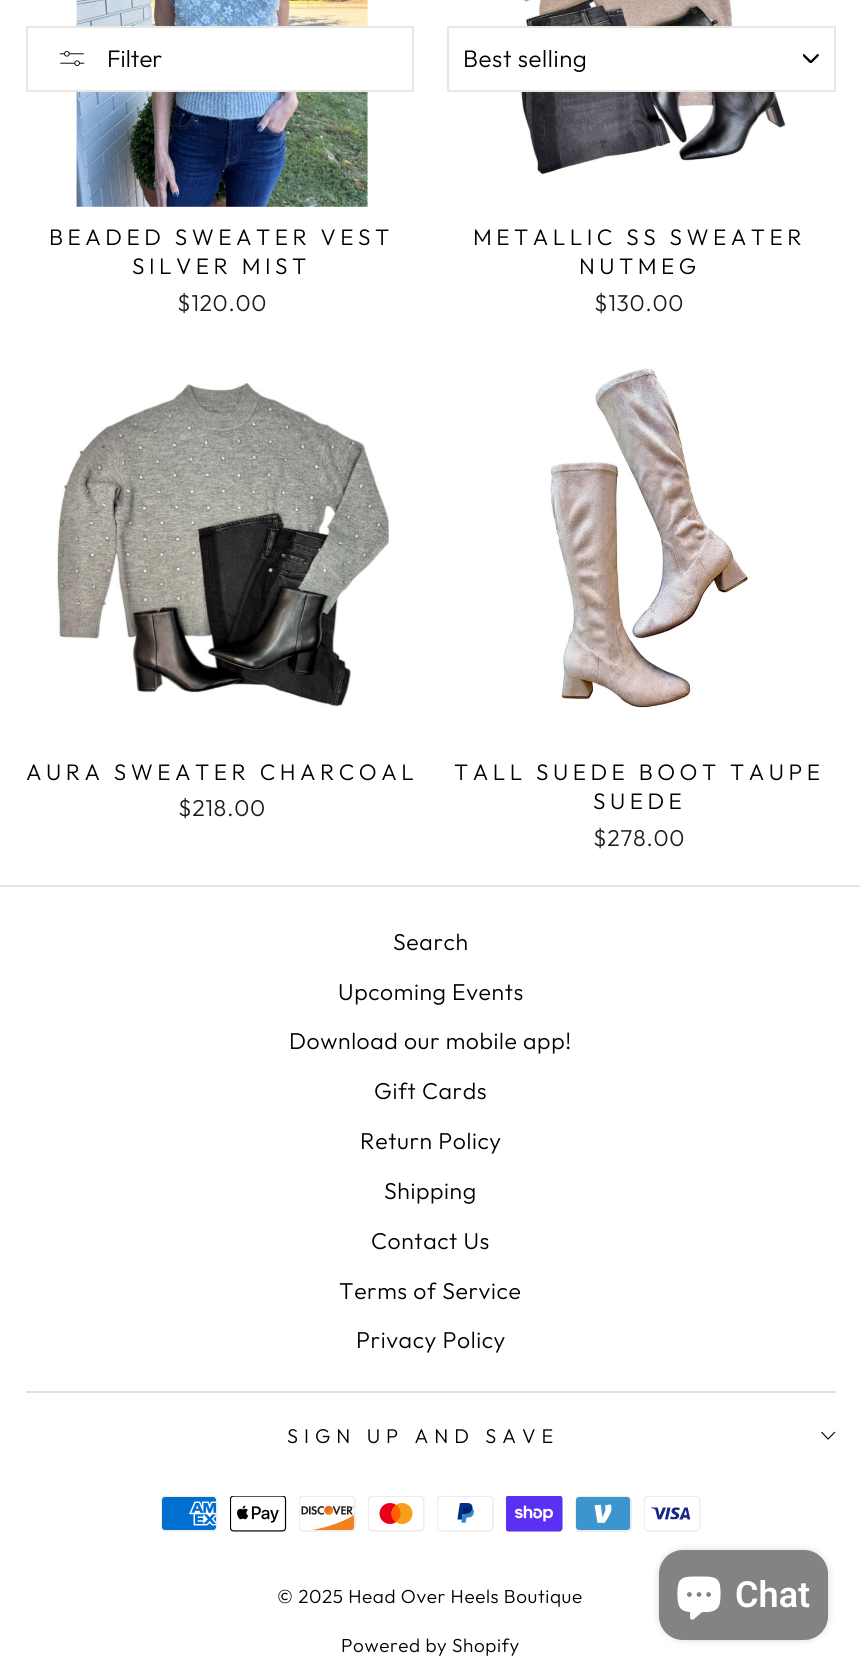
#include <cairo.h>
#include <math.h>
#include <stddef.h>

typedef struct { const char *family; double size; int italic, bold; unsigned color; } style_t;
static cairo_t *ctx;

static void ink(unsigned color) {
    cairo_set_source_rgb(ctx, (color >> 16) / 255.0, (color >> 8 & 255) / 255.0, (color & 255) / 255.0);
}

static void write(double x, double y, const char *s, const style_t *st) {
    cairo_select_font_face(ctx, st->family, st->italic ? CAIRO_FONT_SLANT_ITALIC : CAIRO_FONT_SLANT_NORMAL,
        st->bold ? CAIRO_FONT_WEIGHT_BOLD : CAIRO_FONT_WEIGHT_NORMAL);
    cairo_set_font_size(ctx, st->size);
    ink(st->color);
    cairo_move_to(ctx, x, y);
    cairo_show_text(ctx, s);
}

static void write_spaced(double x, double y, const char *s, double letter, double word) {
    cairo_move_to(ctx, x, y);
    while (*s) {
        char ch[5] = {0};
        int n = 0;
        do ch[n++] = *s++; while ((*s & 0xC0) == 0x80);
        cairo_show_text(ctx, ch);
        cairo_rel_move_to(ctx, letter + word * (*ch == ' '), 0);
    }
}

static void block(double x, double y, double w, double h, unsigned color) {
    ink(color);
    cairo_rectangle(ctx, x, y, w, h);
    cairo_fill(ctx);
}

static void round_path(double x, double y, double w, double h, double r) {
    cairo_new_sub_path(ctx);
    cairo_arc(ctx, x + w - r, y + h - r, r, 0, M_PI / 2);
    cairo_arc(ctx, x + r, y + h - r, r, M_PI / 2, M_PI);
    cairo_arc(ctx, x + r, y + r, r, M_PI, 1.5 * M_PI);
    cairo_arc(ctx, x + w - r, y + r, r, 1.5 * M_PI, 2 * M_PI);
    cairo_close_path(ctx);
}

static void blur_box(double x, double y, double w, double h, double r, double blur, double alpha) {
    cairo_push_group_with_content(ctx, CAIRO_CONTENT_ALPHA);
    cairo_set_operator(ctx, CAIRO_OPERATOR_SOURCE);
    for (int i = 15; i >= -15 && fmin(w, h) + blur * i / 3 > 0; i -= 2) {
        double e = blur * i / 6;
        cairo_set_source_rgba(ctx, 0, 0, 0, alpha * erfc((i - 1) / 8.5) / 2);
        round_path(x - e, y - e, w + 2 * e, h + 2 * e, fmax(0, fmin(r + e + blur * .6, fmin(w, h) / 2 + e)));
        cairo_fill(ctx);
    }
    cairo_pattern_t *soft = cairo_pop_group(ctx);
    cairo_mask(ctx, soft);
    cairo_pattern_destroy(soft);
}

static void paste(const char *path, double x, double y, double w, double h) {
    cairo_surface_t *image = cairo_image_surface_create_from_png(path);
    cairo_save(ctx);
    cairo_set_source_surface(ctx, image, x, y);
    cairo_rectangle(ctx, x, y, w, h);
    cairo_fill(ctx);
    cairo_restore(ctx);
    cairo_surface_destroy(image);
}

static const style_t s1 = {"Outfit Light", 24, 0, 0, 0x000000};
static const style_t s2 = {"Roboto SemiBold", 36, 0, 0, 0xffffff};

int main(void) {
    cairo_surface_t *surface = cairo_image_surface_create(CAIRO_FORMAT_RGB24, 860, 1671);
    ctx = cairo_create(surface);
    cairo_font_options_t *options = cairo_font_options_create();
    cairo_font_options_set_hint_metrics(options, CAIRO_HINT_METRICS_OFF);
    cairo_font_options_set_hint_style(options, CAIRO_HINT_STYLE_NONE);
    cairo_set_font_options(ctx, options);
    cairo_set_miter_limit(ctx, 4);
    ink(0xffffff);
    cairo_paint(ctx);
    paste("pic3.png", 76, 0, 292, 207);
    block(76, 28, 292, 62, 0xffffff);
    cairo_rectangle(ctx, 27, 27, 386, 64);
    ink(0xe8e8e1);
    cairo_stroke(ctx);
    paste("pic1.png", 59, 51, 26, 15);
    write(107, 67, "Filter", &s1);
    paste("pic4.png", 517, 0, 269, 176);
    block(517, 28, 258, 62, 0xffffff);
    paste("pic2.png", 803, 54, 16, 9);
    cairo_rectangle(ctx, 448, 27, 387, 64);
    ink(0xe8e8e1);
    cairo_stroke(ctx);
    ink(0x000000);
    write_spaced(463, 67, "Best selling", 0.6, 0);
    cairo_set_font_size(ctx, 22.5);
    write_spaced(49, 245, "BEADED SWEATER VEST", 4.5, 0);
    write_spaced(132, 274, "SILVER MIST", 4.5, 0);
    cairo_set_font_size(ctx, 23);
    ink(0x1c1d1d);
    write_spaced(177, 311, "$120.00", 0.6, 0);
    cairo_set_font_size(ctx, 22.5);
    ink(0x000000);
    write_spaced(473, 245, "METALLIC SS SWEATER", 4.5, 0);
    write_spaced(579, 274, "NUTMEG", 4.5, 0);
    cairo_set_font_size(ctx, 23);
    ink(0x1c1d1d);
    write_spaced(594, 311, "$130.00", 0.6, 0);
    paste("pic5.png", 56, 383, 333, 324);
    cairo_set_font_size(ctx, 22.5);
    ink(0x000000);
    write_spaced(26, 780, "AURA SWEATER CHARCOAL", 4.5, 0);
    cairo_set_font_size(ctx, 23);
    ink(0x1c1d1d);
    write_spaced(178, 816, "$218.00", 0.6, 0);
    paste("pic6.png", 550, 368, 199, 340);
    cairo_set_font_size(ctx, 22.5);
    ink(0x000000);
    write_spaced(454, 780, "TALL SUEDE BOOT TAUPE", 4.5, 0);
    write_spaced(593, 809, "SUEDE", 4.5, 0);
    cairo_set_font_size(ctx, 23);
    ink(0x1c1d1d);
    write_spaced(593, 846, "$278.00", 0.6, 0);
    block(0, 885, 860, 2, 0xe8e8e1);
    ink(0x000000);
    write_spaced(393, 950, "Search", 0.6, 0);
    write_spaced(338, 1000, "Upcoming Events", 0.6, 0);
    write_spaced(289, 1049, "Download our mobile app!", 0.6, 0);
    write_spaced(374, 1099, "Gift Cards", 0.6, 0);
    write_spaced(360, 1149, "Return Policy", 0.6, 0);
    write_spaced(384, 1199, "Shipping", 0.6, 0);
    write_spaced(371, 1249, "Contact Us", 0.6, 0);
    write_spaced(339, 1299, "Terms of Service", 0.6, 0);
    write_spaced(356, 1348, "Privacy Policy", 0.6, 0);
    block(26, 1391, 810, 2, 0xe0e0e0);
    cairo_set_font_size(ctx, 19.9);
    ink(0x000000);
    write_spaced(287, 1443, "SIGN UP AND SAVE", 6, 0);
    cairo_new_path(ctx);
    cairo_move_to(ctx, 821.5, 1432);
    cairo_line_to(ctx, 828, 1439);
    cairo_line_to(ctx, 835, 1432);
    cairo_set_line_width(ctx, 1.1);
    cairo_stroke(ctx);
    paste("pic7.png", 161, 1496, 57, 36);
    paste("pic8.png", 230, 1496, 57, 36);
    paste("pic9.png", 299, 1496, 57, 36);
    paste("pic10.png", 368, 1496, 57, 36);
    paste("pic11.png", 437, 1496, 57, 36);
    paste("pic12.png", 506, 1496, 57, 36);
    paste("pic13.png", 575, 1496, 57, 36);
    paste("pic14.png", 644, 1496, 57, 36);
    cairo_set_font_size(ctx, 18.9);
    write_spaced(277, 1603, "© 2025 Head Over Heels Boutique", 0.6, 0);
    write_spaced(341, 1652, "Powered by Shopify", 0.6, 0);
    ink(0x000000);
    blur_box(659, 1550, 169, 90, 24, 4, 0.15);
    ink(0x828385);
    round_path(659, 1550, 169, 90, 24);
    cairo_fill(ctx);
    paste("pic15.png", 677, 1576, 44, 44);
    write(735, 1607, "Chat", &s2);
    cairo_surface_write_to_png(surface, "screenshot.png");
    cairo_font_options_destroy(options);
    cairo_destroy(ctx);
    cairo_surface_destroy(surface);
    return 0;
}
